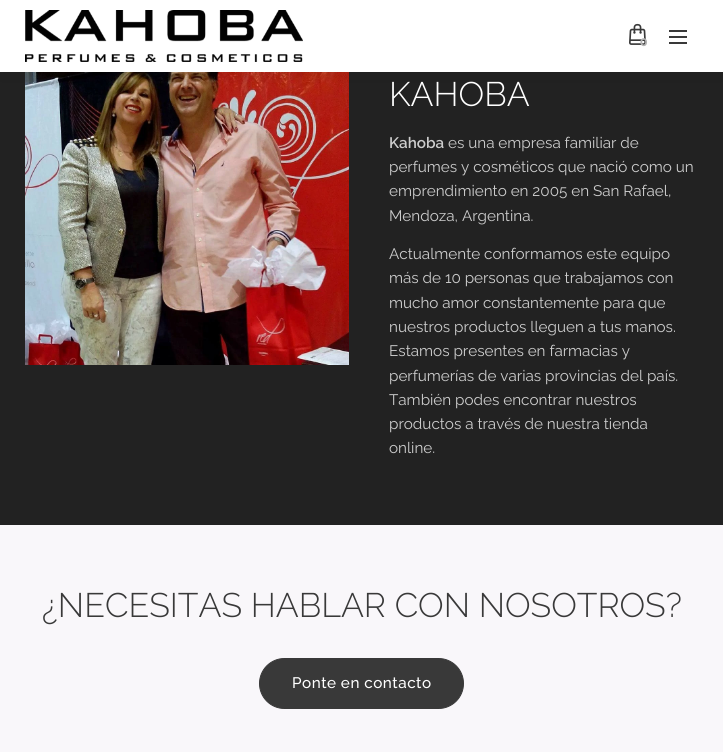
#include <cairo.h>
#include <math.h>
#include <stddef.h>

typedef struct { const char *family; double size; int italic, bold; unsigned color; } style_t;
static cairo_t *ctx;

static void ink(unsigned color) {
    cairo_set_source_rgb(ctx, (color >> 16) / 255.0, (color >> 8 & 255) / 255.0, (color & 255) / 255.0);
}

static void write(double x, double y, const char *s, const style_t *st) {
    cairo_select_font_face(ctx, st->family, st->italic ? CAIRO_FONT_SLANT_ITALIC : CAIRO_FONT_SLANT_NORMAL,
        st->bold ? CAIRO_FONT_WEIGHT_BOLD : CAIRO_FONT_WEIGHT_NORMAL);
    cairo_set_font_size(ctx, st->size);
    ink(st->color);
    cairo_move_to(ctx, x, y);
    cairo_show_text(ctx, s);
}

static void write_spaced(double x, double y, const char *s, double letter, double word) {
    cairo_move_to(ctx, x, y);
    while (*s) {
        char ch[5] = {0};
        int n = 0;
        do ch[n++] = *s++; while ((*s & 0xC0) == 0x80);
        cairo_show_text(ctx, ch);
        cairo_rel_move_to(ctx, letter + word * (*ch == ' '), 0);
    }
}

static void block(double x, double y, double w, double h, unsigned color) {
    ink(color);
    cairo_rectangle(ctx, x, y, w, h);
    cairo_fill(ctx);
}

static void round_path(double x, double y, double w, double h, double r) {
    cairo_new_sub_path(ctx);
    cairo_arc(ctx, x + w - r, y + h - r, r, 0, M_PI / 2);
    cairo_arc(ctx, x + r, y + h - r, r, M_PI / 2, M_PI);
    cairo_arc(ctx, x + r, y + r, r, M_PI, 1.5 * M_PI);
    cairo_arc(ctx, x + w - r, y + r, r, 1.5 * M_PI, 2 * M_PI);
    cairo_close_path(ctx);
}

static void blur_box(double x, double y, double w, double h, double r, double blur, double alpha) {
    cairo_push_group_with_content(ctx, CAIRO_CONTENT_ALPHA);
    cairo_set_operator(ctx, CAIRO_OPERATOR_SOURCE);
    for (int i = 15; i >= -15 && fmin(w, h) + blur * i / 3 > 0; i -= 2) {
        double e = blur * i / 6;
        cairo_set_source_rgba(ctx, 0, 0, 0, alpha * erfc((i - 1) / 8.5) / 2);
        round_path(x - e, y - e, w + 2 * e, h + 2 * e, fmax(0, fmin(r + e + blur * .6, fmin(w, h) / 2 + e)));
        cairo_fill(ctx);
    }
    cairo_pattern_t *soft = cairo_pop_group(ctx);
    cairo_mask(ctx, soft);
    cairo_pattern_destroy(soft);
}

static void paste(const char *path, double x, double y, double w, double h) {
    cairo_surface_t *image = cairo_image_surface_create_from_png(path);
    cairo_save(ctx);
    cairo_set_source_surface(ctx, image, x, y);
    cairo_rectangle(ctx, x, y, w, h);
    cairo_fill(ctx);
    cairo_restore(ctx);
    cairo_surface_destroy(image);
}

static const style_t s1 = {"Montserrat", 11, 0, 1, 0xb3b3b3};
static const style_t s2 = {"Raleway Light", 34, 0, 0, 0xffffff};
static const style_t s3 = {"Raleway SemiBold", 15.25, 0, 0, 0xcccccc};
static const style_t s4 = {"Raleway", 15.25, 0, 0, 0xcccccc};
static const style_t s5 = {"Raleway Light", 34, 0, 0, 0x393939};

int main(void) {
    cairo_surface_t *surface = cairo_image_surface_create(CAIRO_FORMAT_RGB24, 723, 752);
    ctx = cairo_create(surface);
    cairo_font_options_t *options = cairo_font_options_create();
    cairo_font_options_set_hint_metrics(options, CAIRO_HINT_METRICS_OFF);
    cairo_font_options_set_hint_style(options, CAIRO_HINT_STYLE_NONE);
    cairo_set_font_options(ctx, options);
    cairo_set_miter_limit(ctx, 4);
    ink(0x222222);
    cairo_paint(ctx);
    paste("pic3.png", 25, 72, 324, 293);
    ink(0x000000);
    blur_box(0, 5, 723, 72, 0, 7.5, 0.07);
    block(0, 0, 723, 72, 0xffffff);
    paste("pic1.png", 25, 10, 278, 52);
    paste("pic2.png", 629, 23, 17, 22);
    write(640, 46, "0", &s1);
    block(669, 36, 18, 2, 0x393939);
    block(669, 30, 18, 2, 0x393939);
    block(669, 42, 18, 2, 0x393939);
    write(389, 106, "KAHOBA", &s2);
    write(389, 148, "Kahoba", &s3);
    write(448, 148, "es una empresa familiar de", &s4);
    write(389, 172, "perfumes y cosméticos que nació como un", &s4);
    write(389, 196, "emprendimiento en 2005 en San Rafael,", &s4);
    write(389, 221, "Mendoza, Argentina.", &s4);
    write(389, 259, "Actualmente conformamos este equipo", &s4);
    write(389, 283, "más de 10 personas que trabajamos con", &s4);
    write(389, 308, "mucho amor constantemente para que", &s4);
    write(389, 332, "nuestros productos lleguen a tus manos.", &s4);
    write(389, 356, "Estamos presentes en farmacias y", &s4);
    write(389, 381, "perfumerías de varias provincias del país.", &s4);
    write(389, 405, "También podes encontrar nuestros", &s4);
    write(389, 429, "productos a través de nuestra tienda", &s4);
    write(389, 453, "online.", &s4);
    block(0, 525, 723, 227, 0xf9f7fa);
    write(42, 617, "¿NECESITAS HABLAR CON NOSOTROS?", &s5);
    round_path(259.5, 658.5, 204, 50, 25);
    cairo_fill_preserve(ctx);
    cairo_set_line_width(ctx, 1);
    cairo_stroke(ctx);
    cairo_select_font_face(ctx, "Raleway Medium", CAIRO_FONT_SLANT_NORMAL, CAIRO_FONT_WEIGHT_NORMAL);
    cairo_set_font_size(ctx, 15.25);
    ink(0xffffff);
    write_spaced(292, 688, "Ponte en contacto", 0.5, 0);
    cairo_surface_write_to_png(surface, "screenshot.png");
    cairo_font_options_destroy(options);
    cairo_destroy(ctx);
    cairo_surface_destroy(surface);
    return 0;
}
